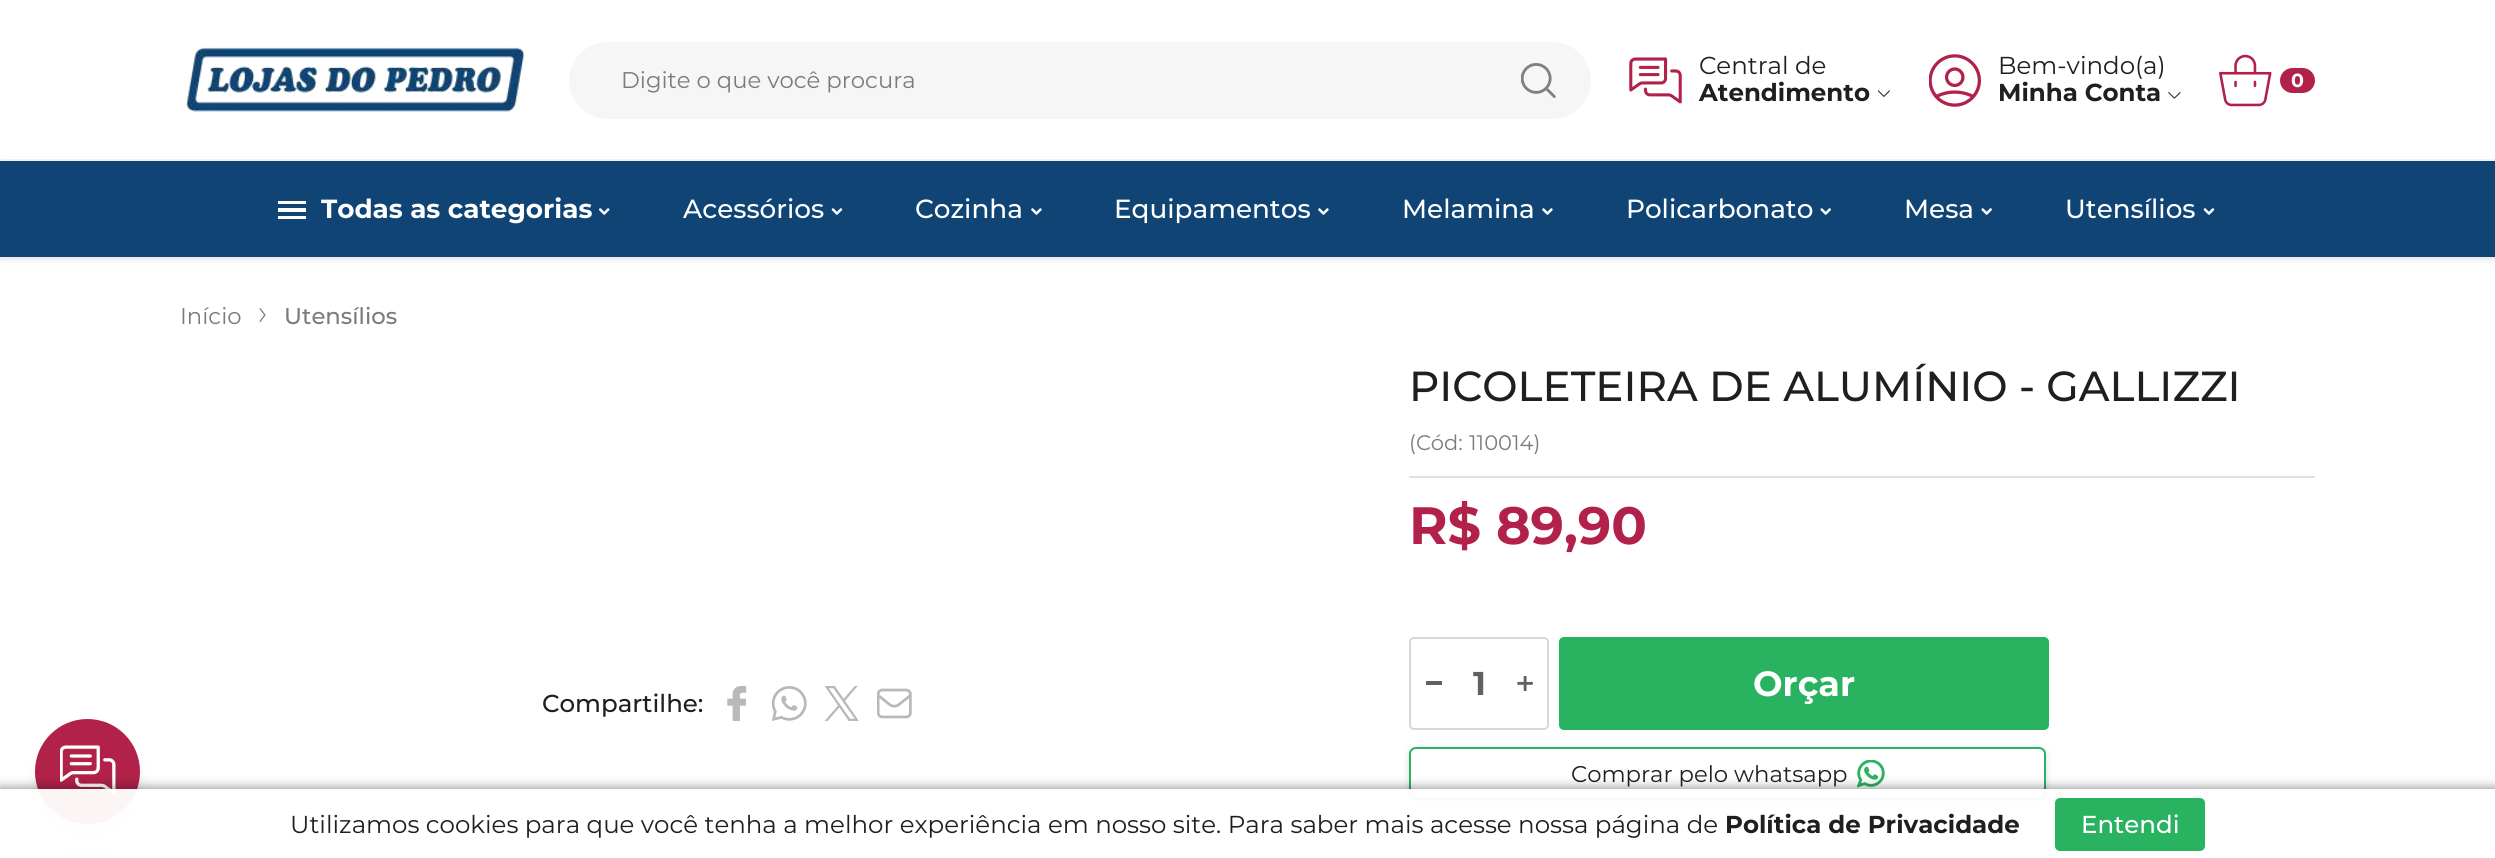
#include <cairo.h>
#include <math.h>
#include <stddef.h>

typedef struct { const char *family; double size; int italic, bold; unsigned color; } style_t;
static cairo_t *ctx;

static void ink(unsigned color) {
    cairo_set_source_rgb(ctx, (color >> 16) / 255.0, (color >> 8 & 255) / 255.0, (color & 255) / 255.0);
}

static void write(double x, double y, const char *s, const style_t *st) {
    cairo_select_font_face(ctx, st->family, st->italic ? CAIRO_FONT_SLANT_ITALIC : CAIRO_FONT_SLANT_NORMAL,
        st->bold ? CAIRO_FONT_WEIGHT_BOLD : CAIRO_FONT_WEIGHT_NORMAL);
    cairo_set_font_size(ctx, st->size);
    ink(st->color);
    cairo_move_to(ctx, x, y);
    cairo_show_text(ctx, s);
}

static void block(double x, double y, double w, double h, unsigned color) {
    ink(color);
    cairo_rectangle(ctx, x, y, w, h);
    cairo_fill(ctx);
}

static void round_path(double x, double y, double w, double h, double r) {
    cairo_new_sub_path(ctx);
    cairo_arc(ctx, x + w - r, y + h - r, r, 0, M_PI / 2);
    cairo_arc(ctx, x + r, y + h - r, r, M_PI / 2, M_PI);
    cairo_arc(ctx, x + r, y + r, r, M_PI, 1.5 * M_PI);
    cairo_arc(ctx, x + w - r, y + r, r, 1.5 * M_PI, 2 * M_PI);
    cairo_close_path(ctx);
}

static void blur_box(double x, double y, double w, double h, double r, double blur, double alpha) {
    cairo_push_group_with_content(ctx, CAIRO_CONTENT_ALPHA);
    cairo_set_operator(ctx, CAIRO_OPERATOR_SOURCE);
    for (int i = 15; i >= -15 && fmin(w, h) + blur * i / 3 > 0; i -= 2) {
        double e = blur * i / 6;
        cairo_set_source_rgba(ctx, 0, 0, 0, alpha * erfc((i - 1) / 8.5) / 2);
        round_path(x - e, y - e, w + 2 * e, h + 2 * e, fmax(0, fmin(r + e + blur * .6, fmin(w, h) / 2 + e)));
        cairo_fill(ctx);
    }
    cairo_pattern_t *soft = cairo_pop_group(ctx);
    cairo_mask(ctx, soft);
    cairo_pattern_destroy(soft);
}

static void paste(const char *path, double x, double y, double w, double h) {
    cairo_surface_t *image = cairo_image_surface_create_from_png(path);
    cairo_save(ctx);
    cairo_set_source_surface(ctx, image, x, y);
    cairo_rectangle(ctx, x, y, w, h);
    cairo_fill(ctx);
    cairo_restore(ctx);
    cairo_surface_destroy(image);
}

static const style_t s1 = {"Montserrat", 22.75, 0, 0, 0x7b7b7b};
static const style_t s2 = {"Montserrat", 24.5, 0, 0, 0x201f1f};
static const style_t s3 = {"Montserrat", 24.5, 0, 1, 0x201f1f};
static const style_t s4 = {"Montserrat", 19, 0, 1, 0xffffff};
static const style_t s5 = {"Montserrat", 26.25, 0, 1, 0xffffff};
static const style_t s6 = {"Montserrat Medium", 26.25, 0, 0, 0xffffff};
static const style_t s7 = {"Montserrat Medium", 22.75, 0, 0, 0x7b7b7b};
static const style_t s8 = {"Montserrat Medium", 24.5, 0, 0, 0x201f1f};
static const style_t s9 = {"Montserrat Medium", 42, 0, 0, 0x201f1f};
static const style_t s10 = {"Montserrat", 21, 0, 0, 0x7b7b7b};
static const style_t s11 = {"Montserrat", 52.5, 0, 1, 0xb12149};
static const style_t s12 = {"Montserrat", 33, 0, 1, 0x616161};
static const style_t s13 = {"Montserrat", 35, 0, 1, 0xffffff};
static const style_t s14 = {"Montserrat", 22.75, 0, 0, 0x201f1f};
static const style_t s15 = {"Montserrat Medium", 24.5, 0, 0, 0xffffff};

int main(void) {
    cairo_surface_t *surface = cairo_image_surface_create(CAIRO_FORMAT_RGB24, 2495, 858);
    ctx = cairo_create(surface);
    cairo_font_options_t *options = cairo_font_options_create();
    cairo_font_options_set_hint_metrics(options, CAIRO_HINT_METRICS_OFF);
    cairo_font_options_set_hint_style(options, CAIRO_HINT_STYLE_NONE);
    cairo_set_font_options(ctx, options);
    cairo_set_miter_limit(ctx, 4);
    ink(0xffffff);
    cairo_paint(ctx);
    ink(0x676767);
    blur_box(35, 737, 105, 105, 52.5, 7, 0.1);
    ink(0x000000);
    blur_box(35, 723, 105, 105, 52.5, 1, 0.04);
    ink(0xb12149);
    cairo_arc(ctx, 87.5, 771.5, 52.5, 0, 2 * M_PI);
    cairo_fill(ctx);
    paste("pic1.png", 60, 745, 56, 50);
    ink(0x525252);
    blur_box(0, 163, 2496, 96, 0, 3.5, 0.2);
    block(2, 158, 2492, 1, 0xffffff);
    block(0, 159, 2495, 2, 0xf1f1f1);
    paste("pic2.png", 186, 47, 339, 65);
    ink(0xf6f6f6);
    round_path(569, 42, 1022, 77, 38.5);
    cairo_fill(ctx);
    write(621, 88, "Digite o que você procura", &s1);
    paste("pic3.png", 1521, 63, 35, 35);
    paste("pic4.png", 1629, 57, 53, 47);
    write(1699, 74, "Central de", &s2);
    write(1699, 101, "Atendimento", &s3);
    paste("pic5.png", 1878, 90, 12, 7);
    paste("pic6.png", 1929, 54, 52, 53);
    write(1998, 74, "Bem-vindo(a)", &s2);
    write(1998, 101, "Minha Conta", &s3);
    paste("pic7.png", 2168, 92, 13, 7);
    paste("pic8.png", 2219, 54, 53, 53);
    ink(0xb12149);
    round_path(2280, 68, 35, 25, 12.5);
    cairo_fill(ctx);
    write(2291, 87, "0", &s4);
    block(0, 161, 2495, 96, 0x0f4475);
    block(278, 216, 28, 3, 0xffffff);
    block(278, 208, 28, 4, 0xffffff);
    block(278, 201, 28, 3, 0xffffff);
    write(321, 218, "Todas as categorias", &s5);
    paste("pic9.png", 598, 208, 12, 7);
    write(683, 218, "Acessórios", &s6);
    paste("pic10.png", 831, 208, 12, 7);
    write(915, 218, "Cozinha", &s6);
    paste("pic11.png", 1031, 208, 11, 7);
    write(1114, 218, "Equipamentos", &s6);
    paste("pic11.png", 1318, 208, 11, 7);
    write(1402, 218, "Melamina", &s6);
    paste("pic11.png", 1542, 208, 11, 7);
    write(1626, 218, "Policarbonato", &s6);
    paste("pic12.png", 1820, 208, 11, 7);
    write(1904, 218, "Mesa", &s6);
    paste("pic12.png", 1981, 208, 11, 7);
    write(2065, 218, "Utensílios", &s6);
    paste("pic10.png", 2203, 208, 12, 7);
    write(180, 324, "Início", &s1);
    paste("pic13.png", 259, 308, 7, 14);
    write(284, 324, "Utensílios", &s7);
    write(542, 712, "Compartilhe:", &s8);
    paste("pic14.png", 727, 686, 20, 35);
    paste("pic15.png", 772, 686, 35, 35);
    paste("pic16.png", 824, 686, 35, 35);
    paste("pic17.png", 877, 688, 35, 31);
    block(1409, 476, 906, 2, 0xe1e1e1);
    write(1409, 401, "PICOLETEIRA DE ALUMÍNIO - GALLIZZI", &s9);
    write(1409, 450, "(Cód:", &s10);
    write(1469, 450, "110014)", &s10);
    write(1409, 544, "R$ 89,90", &s11);
    round_path(1410, 638, 138, 91, 4);
    ink(0xd8d8d8);
    cairo_stroke(ctx);
    block(1426, 681, 16, 4, 0x616161);
    write(1473, 695, "1", &s12);
    paste("pic18.png", 1517, 676, 16, 15);
    ink(0x29b360);
    round_path(1559, 637, 490, 93, 5);
    cairo_fill(ctx);
    write(1753, 696, "Orçar", &s13);
    ink(0xb1b1b1);
    blur_box(1409, 749, 637, 53, 7, 3.5, 0.46);
    ink(0xffffff);
    round_path(1410, 748, 635, 51, 6);
    cairo_fill_preserve(ctx);
    ink(0x29b360);
    cairo_stroke(ctx);
    write(1571, 782, "Comprar pelo whatsapp", &s14);
    paste("pic19.png", 1857, 760, 28, 28);
    cairo_save(ctx);
    cairo_set_fill_rule(ctx, CAIRO_FILL_RULE_EVEN_ODD);
    cairo_new_path(ctx);
    cairo_move_to(ctx, 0, 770);
    cairo_line_to(ctx, 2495, 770);
    cairo_line_to(ctx, 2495, 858);
    cairo_line_to(ctx, 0, 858);
    cairo_close_path(ctx);
    cairo_move_to(ctx, 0, 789);
    cairo_line_to(ctx, 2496, 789);
    cairo_line_to(ctx, 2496, 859);
    cairo_line_to(ctx, 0, 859);
    cairo_close_path(ctx);
    cairo_clip(ctx);
    ink(0x000000);
    blur_box(0, 789, 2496, 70, 0, 6, 0.5);
    cairo_restore(ctx);
    cairo_set_source_rgba(ctx, 1, 1, 1, 0.95);
    cairo_rectangle(ctx, 0, 789, 2495, 59);
    cairo_fill(ctx);
    write(290, 833, "Utilizamos cookies para que você tenha a melhor experiência em nosso site. Para saber mais acesse nossa página de", &s2);
    write(1725, 833, "Política de Privacidade", &s3);
    ink(0x29b360);
    round_path(2055, 798, 150, 53, 5);
    cairo_fill(ctx);
    write(2081, 833, "Entendi", &s15);
    cairo_surface_write_to_png(surface, "screenshot.png");
    cairo_font_options_destroy(options);
    cairo_destroy(ctx);
    cairo_surface_destroy(surface);
    return 0;
}
